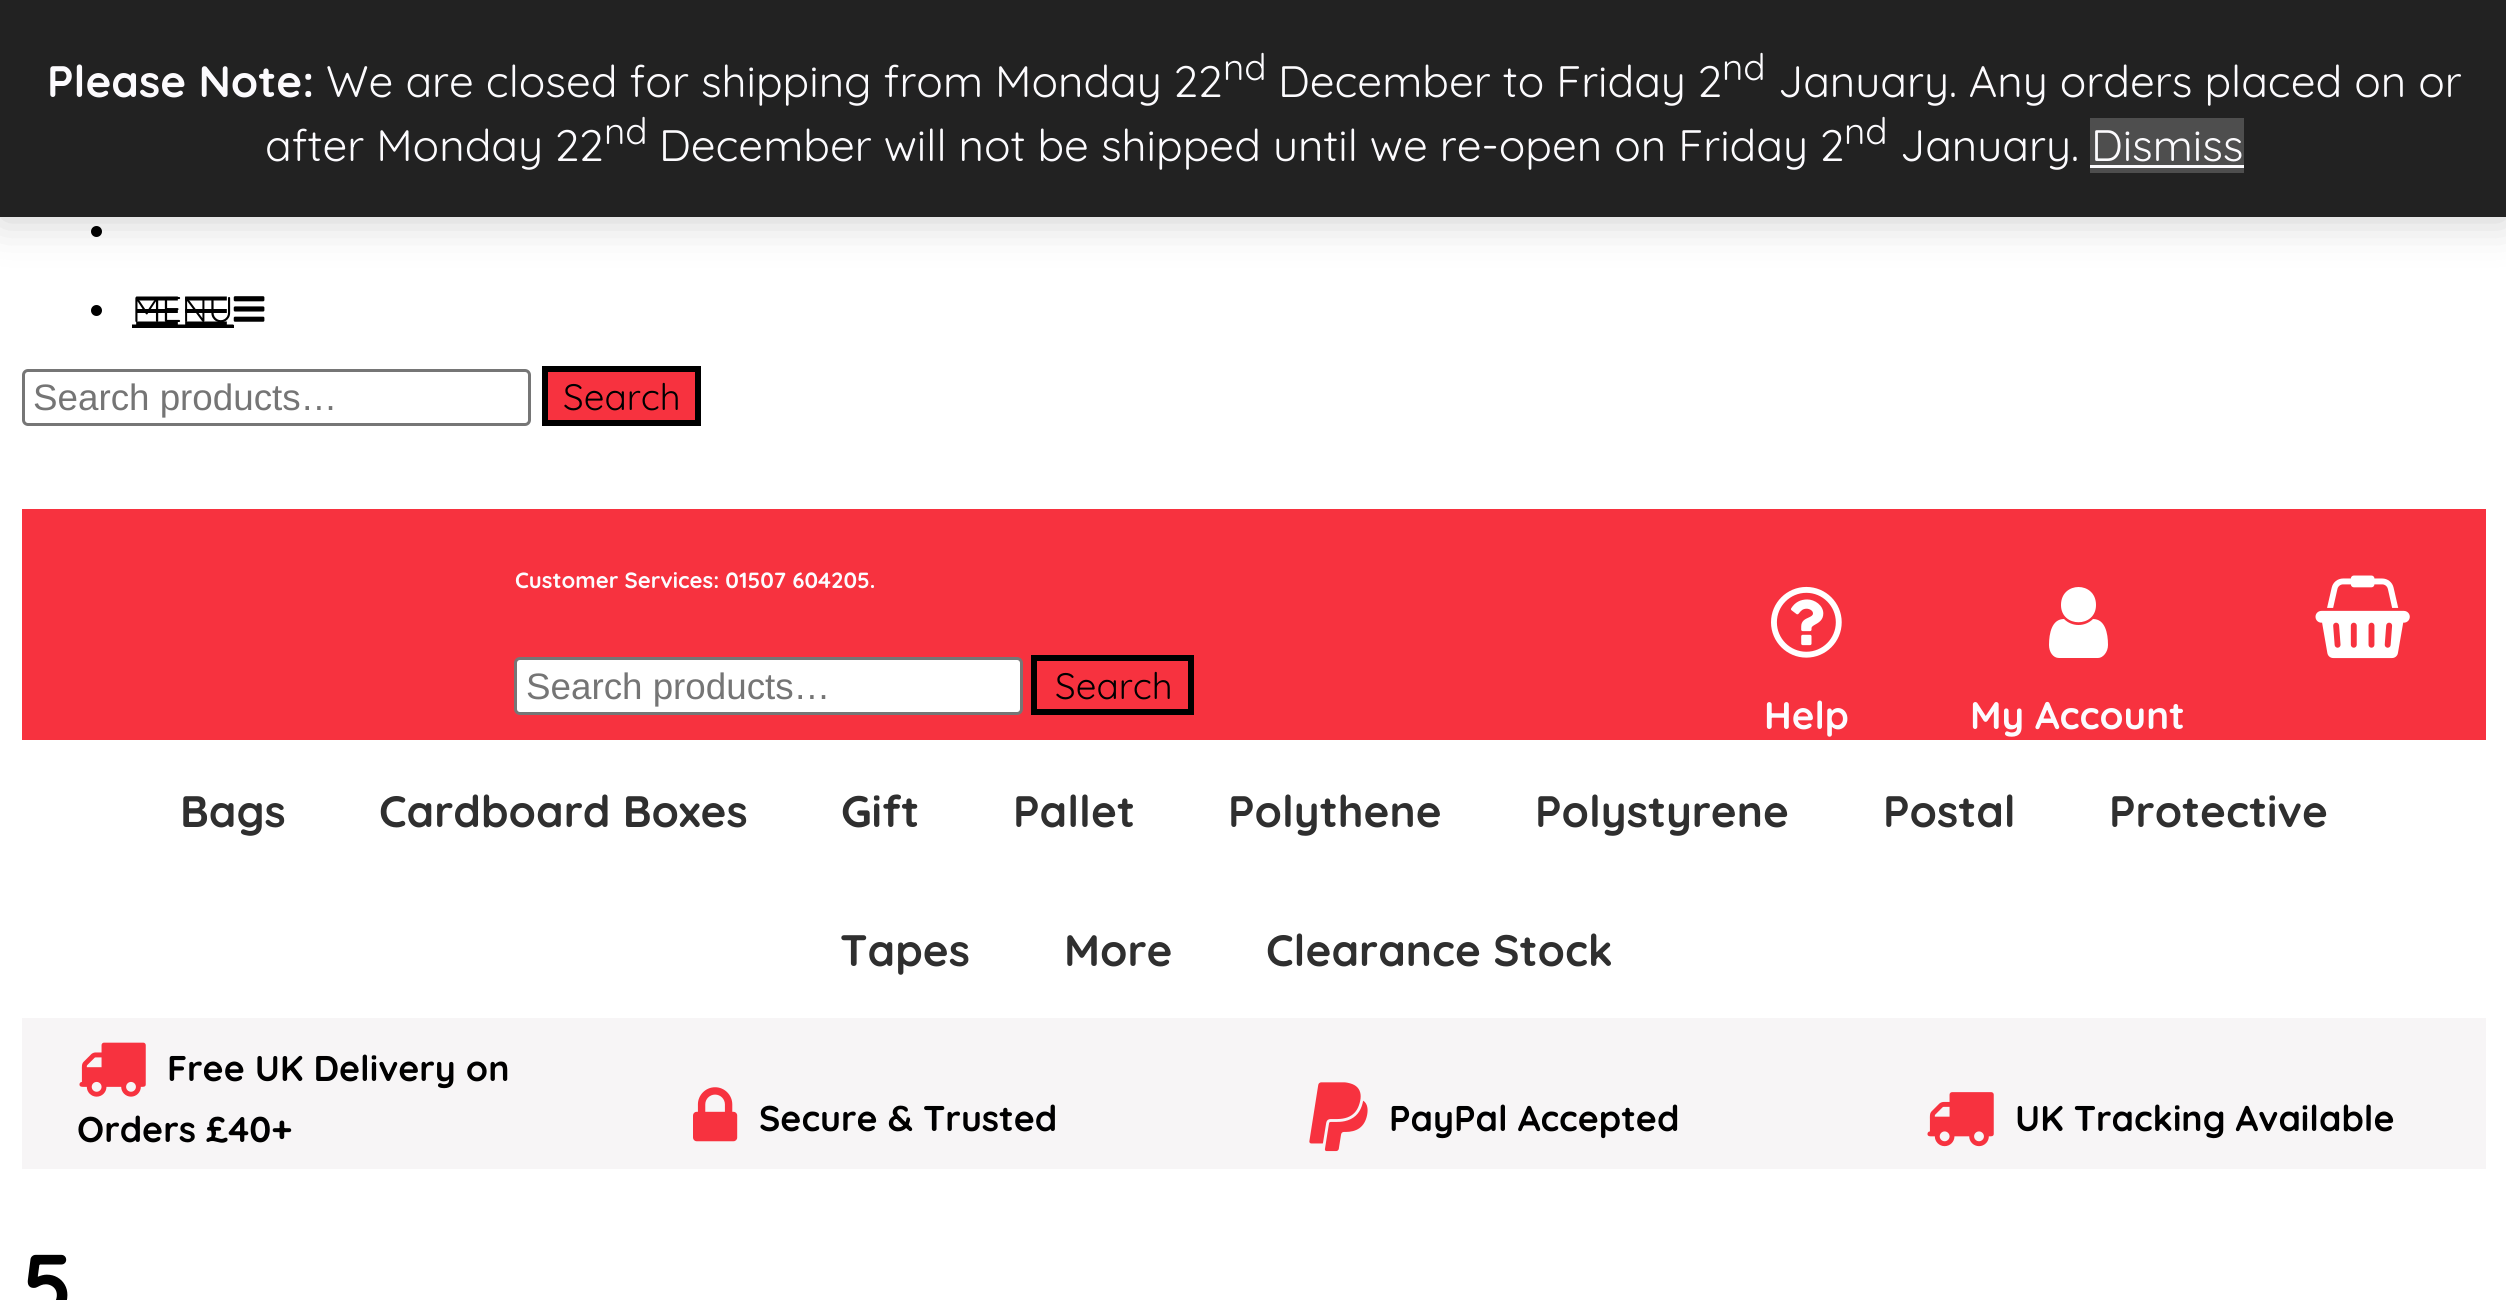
#include <cairo.h>
#include <math.h>
#include <stddef.h>

typedef struct { const char *family; double size; int italic, bold; unsigned color; } style_t;
static cairo_t *ctx;

static void ink(unsigned color) {
    cairo_set_source_rgb(ctx, (color >> 16) / 255.0, (color >> 8 & 255) / 255.0, (color & 255) / 255.0);
}

static void write(double x, double y, const char *s, const style_t *st) {
    cairo_select_font_face(ctx, st->family, st->italic ? CAIRO_FONT_SLANT_ITALIC : CAIRO_FONT_SLANT_NORMAL,
        st->bold ? CAIRO_FONT_WEIGHT_BOLD : CAIRO_FONT_WEIGHT_NORMAL);
    cairo_set_font_size(ctx, st->size);
    ink(st->color);
    cairo_move_to(ctx, x, y);
    cairo_show_text(ctx, s);
}

static void block(double x, double y, double w, double h, unsigned color) {
    ink(color);
    cairo_rectangle(ctx, x, y, w, h);
    cairo_fill(ctx);
}

static void round_path(double x, double y, double w, double h, double r) {
    cairo_new_sub_path(ctx);
    cairo_arc(ctx, x + w - r, y + h - r, r, 0, M_PI / 2);
    cairo_arc(ctx, x + r, y + h - r, r, M_PI / 2, M_PI);
    cairo_arc(ctx, x + r, y + r, r, M_PI, 1.5 * M_PI);
    cairo_arc(ctx, x + w - r, y + r, r, 1.5 * M_PI, 2 * M_PI);
    cairo_close_path(ctx);
}

static void blur_box(double x, double y, double w, double h, double r, double blur, double alpha) {
    cairo_push_group_with_content(ctx, CAIRO_CONTENT_ALPHA);
    cairo_set_operator(ctx, CAIRO_OPERATOR_SOURCE);
    for (int i = 15; i >= -15 && fmin(w, h) + blur * i / 3 > 0; i -= 2) {
        double e = blur * i / 6;
        cairo_set_source_rgba(ctx, 0, 0, 0, alpha * erfc((i - 1) / 8.5) / 2);
        round_path(x - e, y - e, w + 2 * e, h + 2 * e, fmax(0, fmin(r + e + blur * .6, fmin(w, h) / 2 + e)));
        cairo_fill(ctx);
    }
    cairo_pattern_t *soft = cairo_pop_group(ctx);
    cairo_mask(ctx, soft);
    cairo_pattern_destroy(soft);
}

static void paste(const char *path, double x, double y, double w, double h) {
    cairo_surface_t *image = cairo_image_surface_create_from_png(path);
    cairo_save(ctx);
    cairo_set_source_surface(ctx, image, x, y);
    cairo_rectangle(ctx, x, y, w, h);
    cairo_fill(ctx);
    cairo_restore(ctx);
    cairo_surface_destroy(image);
}

static const style_t s1 = {"Quicksand", 44, 0, 1, 0xfcfbfe};
static const style_t s2 = {"Quicksand", 44, 0, 0, 0xfcfbfe};
static const style_t s3 = {"Quicksand", 36.75, 0, 0, 0xfcfbfe};
static const style_t s4 = {"Quicksand", 35.75, 0, 0, 0x000000};
static const style_t s5 = {"Liberation Sans", 36.75, 0, 0, 0x757575};
static const style_t s6 = {"Quicksand", 36.75, 0, 0, 0x000000};
static const style_t s7 = {"Quicksand", 22.1, 0, 1, 0xfcfbfe};
static const style_t s8 = {"Quicksand", 38.5, 0, 1, 0xfcfbfe};
static const style_t s9 = {"Quicksand", 44, 0, 1, 0x2f2f2f};
static const style_t s10 = {"Quicksand", 35.75, 0, 1, 0x000000};
static const style_t s11 = {"Quicksand", 88, 0, 1, 0x000000};

int main(void) {
    cairo_surface_t *surface = cairo_image_surface_create(CAIRO_FORMAT_RGB24, 2506, 1300);
    ctx = cairo_create(surface);
    cairo_font_options_t *options = cairo_font_options_create();
    cairo_font_options_set_hint_metrics(options, CAIRO_HINT_METRICS_OFF);
    cairo_font_options_set_hint_style(options, CAIRO_HINT_STYLE_NONE);
    cairo_set_font_options(ctx, options);
    cairo_set_miter_limit(ctx, 4);
    ink(0xffffff);
    cairo_paint(ctx);
    ink(0x000000);
    cairo_arc(ctx, 96.5, 231.5, 5.5, 0, 2 * M_PI);
    cairo_fill(ctx);
    ink(0x000000);
    blur_box(0, 3, 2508, 217, 0, 22, 0.2);
    block(0, 0, 2506, 217, 0x222222);
    write(47, 97, "Please Note:", &s1);
    write(326, 97, "We are closed for shipping from Monday 22", &s2);
    write(1223, 80, "nd", &s3);
    write(1278, 97, "December to Friday 2", &s2);
    write(1722, 80, "nd", &s3);
    write(1778, 97, "January. Any orders placed on or", &s2);
    write(265, 161, "after Monday 22", &s2);
    write(604, 144, "nd", &s3);
    write(659, 161, "December will not be shipped until we re-open on Friday 2", &s2);
    write(1844, 144, "nd", &s3);
    write(1900, 161, "January.", &s2);
    block(2090, 118, 154, 55, 0x4e4e4e);
    write(2091, 161, "Dismiss", &s2);
    block(2090, 165, 154, 3, 0xfcfbfe);
    ink(0x000000);
    cairo_new_path(ctx);
    cairo_arc(ctx, 96.5, 310.5, 5.5, 0, 2 * M_PI);
    cairo_fill(ctx);
    paste("pic1.png", 132, 296, 102, 29);
    paste("pic2.png", 233, 296, 32, 26);
    write(132, 322, "MENU", &s4);
    block(132, 325, 102, 3, 0x000000);
    round_path(23.5, 370.5, 506, 54, 4.5);
    ink(0x767676);
    cairo_set_line_width(ctx, 3);
    cairo_stroke(ctx);
    write(33, 410, "Search products…", &s5);
    ink(0xf7323f);
    cairo_rectangle(ctx, 545, 369, 153, 54);
    cairo_fill_preserve(ctx);
    ink(0x000000);
    cairo_set_line_width(ctx, 6);
    cairo_stroke(ctx);
    write(563, 410, "Search", &s6);
    block(22, 509, 2464, 231, 0xf7323f);
    write(515, 588, "Customer Services: 01507 604205.", &s7);
    ink(0xffffff);
    round_path(515.5, 658.5, 506, 55, 4.5);
    cairo_fill_preserve(ctx);
    ink(0x767676);
    cairo_set_line_width(ctx, 3);
    cairo_stroke(ctx);
    write(526, 699, "Search products…", &s5);
    cairo_rectangle(ctx, 1034, 658, 157, 54);
    ink(0x000000);
    cairo_set_line_width(ctx, 6);
    cairo_stroke(ctx);
    write(1055, 699, "Search", &s6);
    paste("pic3.png", 2315, 575, 95, 84);
    paste("pic4.png", 1771, 586, 71, 72);
    write(1764, 729, "Help", &s8);
    ink(0xffffff);
    cairo_new_path(ctx);
    cairo_move_to(ctx, 2108, 645);
    cairo_curve_to(ctx, 2108, 633, 2105, 619, 2093, 619);
    cairo_curve_to(ctx, 2085, 627, 2072, 627, 2064, 619);
    cairo_curve_to(ctx, 2052, 619, 2049, 633, 2049, 645);
    cairo_curve_to(ctx, 2049, 652, 2053, 658, 2059, 658);
    cairo_line_to(ctx, 2098, 658);
    cairo_curve_to(ctx, 2103, 658, 2108, 652, 2108, 645);
    cairo_close_path(ctx);
    cairo_move_to(ctx, 2096, 605);
    cairo_curve_to(ctx, 2096, 581, 2061, 581, 2061, 605);
    cairo_curve_to(ctx, 2061, 628, 2096, 628, 2096, 605);
    cairo_close_path(ctx);
    cairo_fill(ctx);
    write(1970, 729, "My Account", &s8);
    write(180, 827, "Bags", &s9);
    write(379, 827, "Cardboard Boxes", &s9);
    write(841, 827, "Gift", &s9);
    write(1013, 827, "Pallet", &s9);
    write(1228, 827, "Polythene", &s9);
    write(1535, 827, "Polystyrene", &s9);
    write(1883, 827, "Postal", &s9);
    write(2109, 827, "Protective", &s9);
    write(840, 966, "Tapes", &s9);
    write(1064, 966, "More", &s9);
    write(1266, 966, "Clearance Stock", &s9);
    block(22, 1018, 2464, 151, 0xf7f5f6);
    paste("pic5.png", 79, 1042, 67, 55);
    write(167, 1081, "Free UK Delivery on", &s10);
    write(77, 1142, "Orders £40+", &s10);
    paste("pic6.png", 693, 1087, 45, 55);
    write(759, 1131, "Secure & Trusted", &s10);
    paste("pic7.png", 1309, 1082, 59, 70);
    write(1389, 1131, "PayPal Accepted", &s10);
    paste("pic8.png", 1927, 1092, 67, 55);
    write(2015, 1131, "UK Tracking Available", &s10);
    write(22, 1316, "5", &s11);
    cairo_surface_write_to_png(surface, "screenshot.png");
    cairo_font_options_destroy(options);
    cairo_destroy(ctx);
    cairo_surface_destroy(surface);
    return 0;
}
